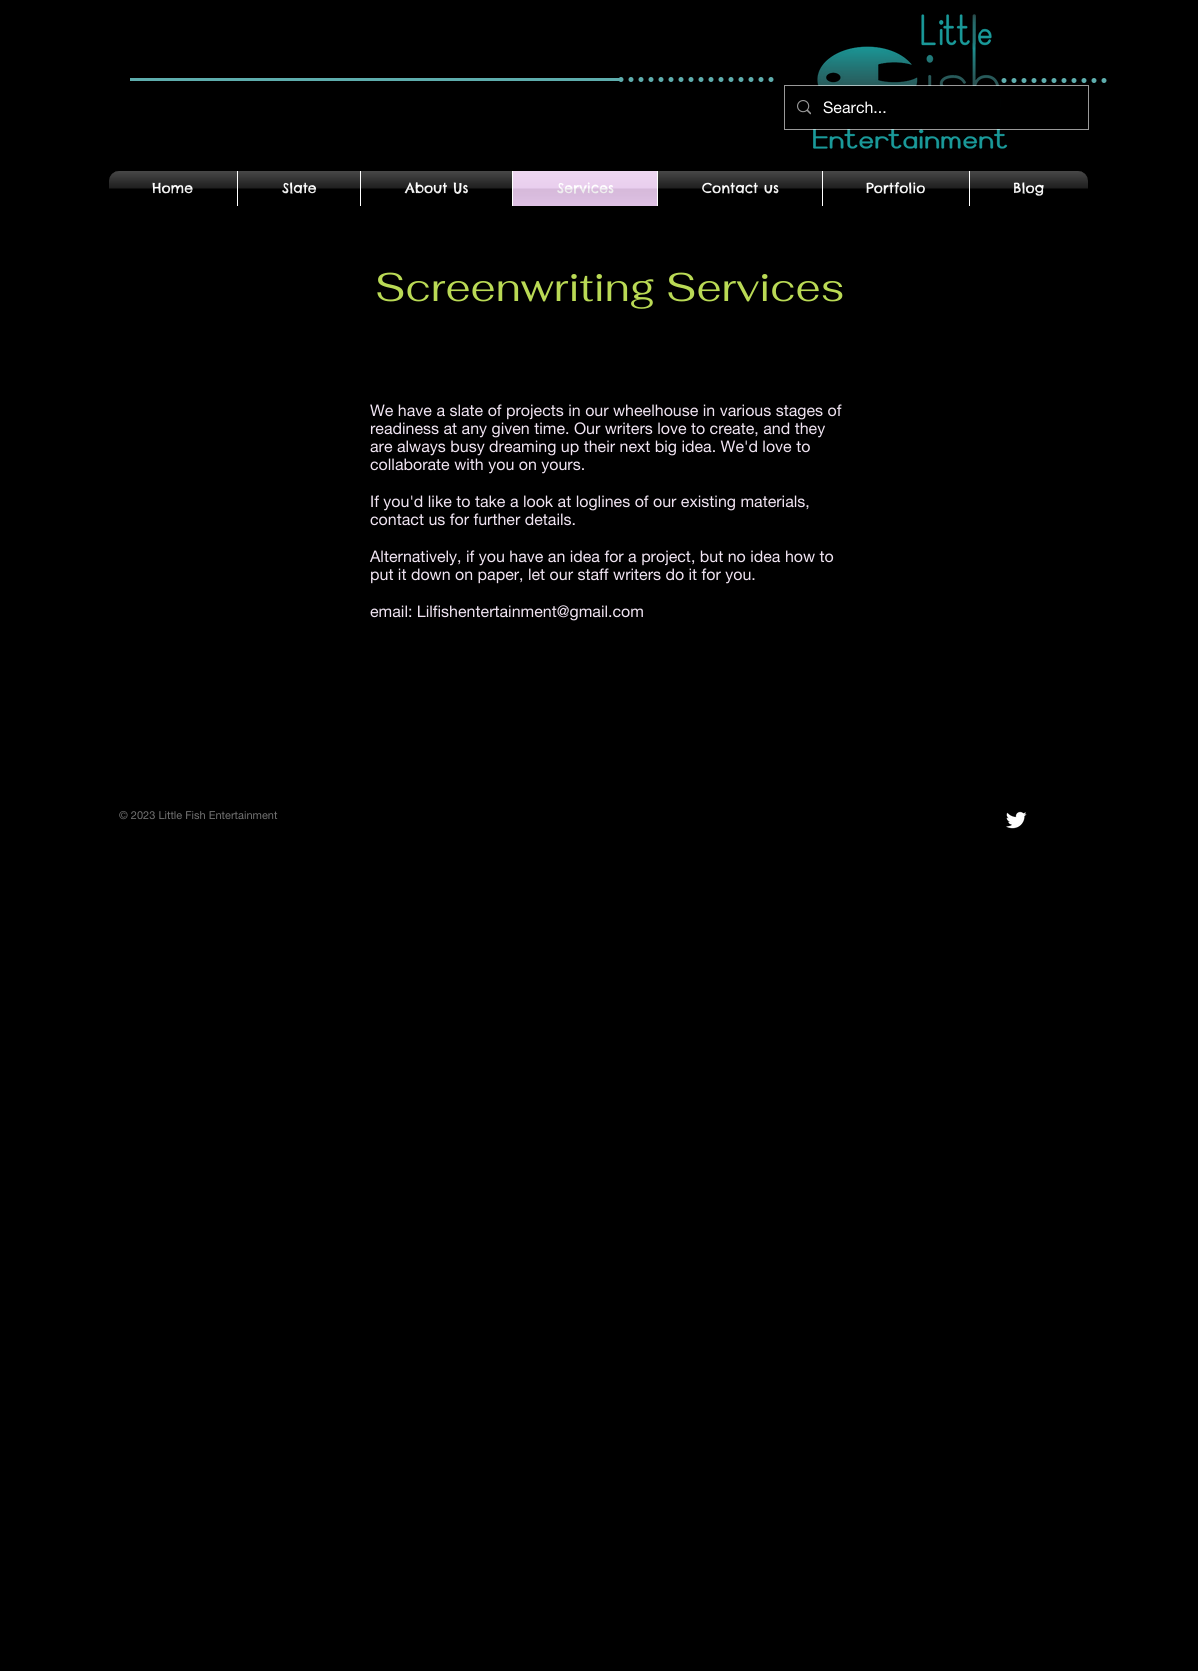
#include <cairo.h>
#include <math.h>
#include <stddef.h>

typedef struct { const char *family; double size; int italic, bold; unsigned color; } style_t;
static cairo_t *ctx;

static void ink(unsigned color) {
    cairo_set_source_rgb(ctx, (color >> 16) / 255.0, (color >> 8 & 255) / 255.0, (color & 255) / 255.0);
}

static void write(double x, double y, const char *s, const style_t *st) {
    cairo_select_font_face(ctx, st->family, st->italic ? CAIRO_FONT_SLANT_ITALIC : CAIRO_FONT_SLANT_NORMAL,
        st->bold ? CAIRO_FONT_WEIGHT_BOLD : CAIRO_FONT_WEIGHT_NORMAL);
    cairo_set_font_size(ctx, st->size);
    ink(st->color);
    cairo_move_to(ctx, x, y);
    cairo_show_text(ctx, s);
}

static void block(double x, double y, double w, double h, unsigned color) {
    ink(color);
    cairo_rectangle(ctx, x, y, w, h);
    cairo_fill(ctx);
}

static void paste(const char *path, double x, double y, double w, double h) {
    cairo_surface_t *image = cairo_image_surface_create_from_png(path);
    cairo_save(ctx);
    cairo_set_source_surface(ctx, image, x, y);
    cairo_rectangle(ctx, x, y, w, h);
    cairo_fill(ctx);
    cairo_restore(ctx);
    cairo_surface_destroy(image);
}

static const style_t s1 = {"helvetica neue", 16, 0, 0, 0xffffff};
static const style_t s2 = {"Chelsea Market", 14, 0, 0, 0xffffff};
static const style_t s3 = {"Fahkwang", 40, 0, 0, 0xbada55};
static const style_t s4 = {"helvetica neue", 16, 0, 0, 0xf0e4f2};
static const style_t s5 = {"helvetica neue", 11, 0, 0, 0x727272};

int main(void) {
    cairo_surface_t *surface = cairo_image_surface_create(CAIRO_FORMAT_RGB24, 1198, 1671);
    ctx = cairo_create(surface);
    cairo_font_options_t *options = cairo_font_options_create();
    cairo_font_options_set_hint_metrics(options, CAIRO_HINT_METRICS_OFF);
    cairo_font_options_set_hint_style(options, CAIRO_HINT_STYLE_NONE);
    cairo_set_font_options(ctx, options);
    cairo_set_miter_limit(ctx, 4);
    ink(0x000000);
    cairo_paint(ctx);
    block(130, 78, 491, 3, 0x5eadad);
    cairo_new_path(ctx);
    cairo_move_to(ctx, 621, 79.5);
    cairo_line_to(ctx, 772, 79.5);
    cairo_set_line_width(ctx, 5);
    cairo_set_line_cap(ctx, CAIRO_LINE_CAP_ROUND);
    cairo_set_dash(ctx, (double[]){0, 10}, 2, 0);
    cairo_stroke(ctx);
    paste("pic1.png", 813, 14, 195, 135);
    cairo_new_path(ctx);
    cairo_move_to(ctx, 1004, 80.5);
    cairo_line_to(ctx, 1109, 80.5);
    cairo_stroke(ctx);
    cairo_rectangle(ctx, 784.5, 85.5, 304, 44);
    cairo_set_source_rgba(ctx, 1, 1, 1, 0.6);
    cairo_set_line_width(ctx, 1);
    cairo_set_line_cap(ctx, CAIRO_LINE_CAP_BUTT);
    cairo_set_dash(ctx, NULL, 0, 0);
    cairo_stroke(ctx);
    block(813, 86, 187, 43, 0x000000);
    paste("pic2.png", 797, 100, 14, 15);
    write(823, 113, "Search...", &s1);
    paste("pic3.png", 109, 171, 979, 10);
    ink(0x000000);
    cairo_new_path(ctx);
    cairo_move_to(ctx, 119, 171);
    cairo_line_to(ctx, 237, 171);
    cairo_line_to(ctx, 237, 206);
    cairo_line_to(ctx, 119, 206);
    cairo_curve_to(ctx, 113.5, 206, 109, 201.5, 109, 196);
    cairo_line_to(ctx, 109, 181);
    cairo_curve_to(ctx, 109, 175.5, 113.5, 171, 119, 171);
    cairo_close_path(ctx);
    cairo_fill(ctx);
    write(152, 193, "Home", &s2);
    paste("pic4.png", 109, 171, 128, 22);
    block(238, 171, 122, 10, 0x000000);
    block(237, 171, 1, 35, 0xffffff);
    write(282, 193, "Slate", &s2);
    paste("pic5.png", 238, 171, 122, 23);
    block(361, 171, 151, 10, 0x000000);
    block(360, 171, 1, 35, 0xffffff);
    write(405, 193, "About Us", &s2);
    paste("pic6.png", 361, 171, 151, 23);
    block(513, 171, 144, 35, 0xe6c7eb);
    block(512, 171, 1, 35, 0xffffff);
    write(557, 193, "Services", &s2);
    paste("pic7.png", 513, 171, 144, 35);
    block(658, 171, 164, 10, 0x000000);
    block(657, 171, 1, 35, 0xffffff);
    write(702, 193, "Contact us", &s2);
    paste("pic8.png", 658, 171, 164, 23);
    block(823, 171, 146, 10, 0x000000);
    block(822, 171, 1, 35, 0xffffff);
    write(866, 193, "Portfolio", &s2);
    paste("pic9.png", 823, 171, 146, 23);
    ink(0x000000);
    cairo_new_path(ctx);
    cairo_move_to(ctx, 969, 171);
    cairo_line_to(ctx, 1078, 171);
    cairo_curve_to(ctx, 1083.5, 171, 1088, 175.5, 1088, 181);
    cairo_line_to(ctx, 1088, 196);
    cairo_curve_to(ctx, 1088, 201.5, 1083.5, 206, 1078, 206);
    cairo_line_to(ctx, 969, 206);
    cairo_close_path(ctx);
    cairo_fill(ctx);
    block(969, 171, 1, 35, 0xffffff);
    write(1013, 193, "Blog", &s2);
    paste("pic10.png", 970, 171, 118, 25);
    write(375, 301, "Screenwriting Services", &s3);
    write(370, 416, "We have a slate of projects in our wheelhouse in various stages of", &s4);
    write(370, 434, "readiness at any given time. Our writers love to create, and they", &s4);
    write(370, 452, "are always busy dreaming up their next big idea. We'd love to", &s4);
    write(370, 470, "collaborate with you on yours.", &s4);
    write(370, 507, "If you'd like to take a look at loglines of our existing materials,", &s4);
    write(370, 525, "contact us for further details.", &s4);
    write(370, 562, "Alternatively, if you have an idea for a project, but no idea how to", &s4);
    write(370, 580, "put it down on paper, let our staff writers do it for you.", &s4);
    write(370, 617, "email: Lilfishentertainment@gmail.com", &s4);
    write(119, 819, "© 2023 Little Fish Entertainment", &s5);
    paste("pic11.png", 1006, 811, 21, 18);
    cairo_surface_write_to_png(surface, "screenshot.png");
    cairo_font_options_destroy(options);
    cairo_destroy(ctx);
    cairo_surface_destroy(surface);
    return 0;
}
